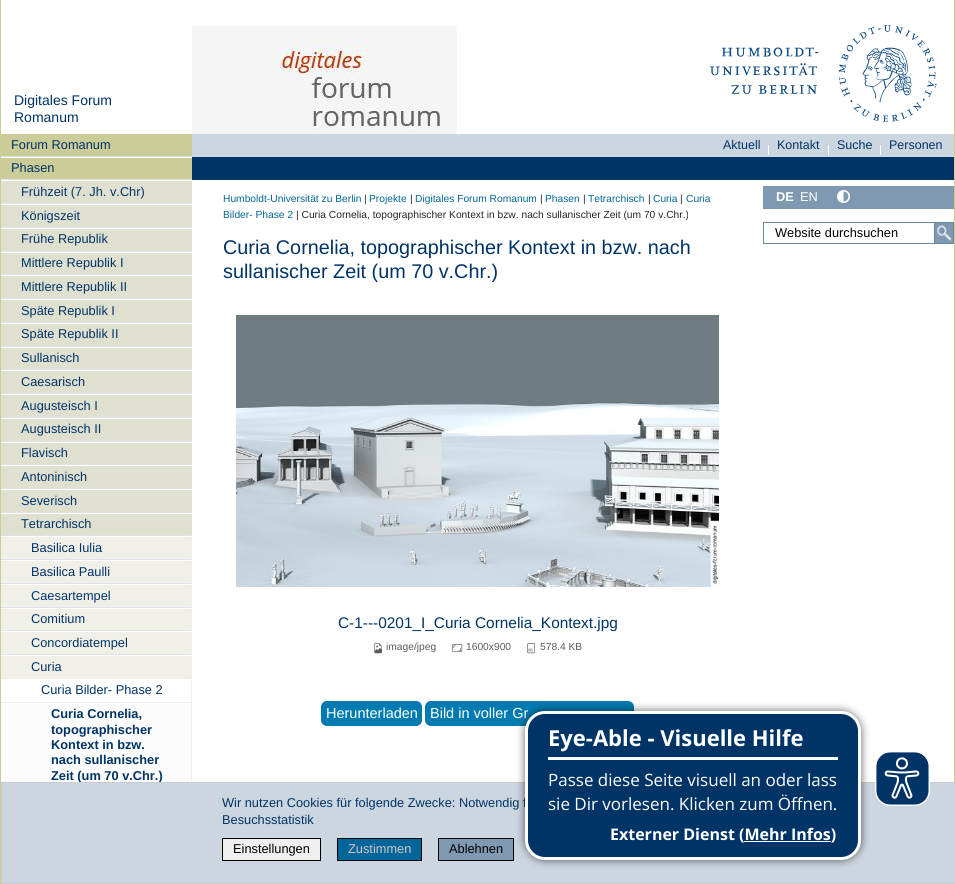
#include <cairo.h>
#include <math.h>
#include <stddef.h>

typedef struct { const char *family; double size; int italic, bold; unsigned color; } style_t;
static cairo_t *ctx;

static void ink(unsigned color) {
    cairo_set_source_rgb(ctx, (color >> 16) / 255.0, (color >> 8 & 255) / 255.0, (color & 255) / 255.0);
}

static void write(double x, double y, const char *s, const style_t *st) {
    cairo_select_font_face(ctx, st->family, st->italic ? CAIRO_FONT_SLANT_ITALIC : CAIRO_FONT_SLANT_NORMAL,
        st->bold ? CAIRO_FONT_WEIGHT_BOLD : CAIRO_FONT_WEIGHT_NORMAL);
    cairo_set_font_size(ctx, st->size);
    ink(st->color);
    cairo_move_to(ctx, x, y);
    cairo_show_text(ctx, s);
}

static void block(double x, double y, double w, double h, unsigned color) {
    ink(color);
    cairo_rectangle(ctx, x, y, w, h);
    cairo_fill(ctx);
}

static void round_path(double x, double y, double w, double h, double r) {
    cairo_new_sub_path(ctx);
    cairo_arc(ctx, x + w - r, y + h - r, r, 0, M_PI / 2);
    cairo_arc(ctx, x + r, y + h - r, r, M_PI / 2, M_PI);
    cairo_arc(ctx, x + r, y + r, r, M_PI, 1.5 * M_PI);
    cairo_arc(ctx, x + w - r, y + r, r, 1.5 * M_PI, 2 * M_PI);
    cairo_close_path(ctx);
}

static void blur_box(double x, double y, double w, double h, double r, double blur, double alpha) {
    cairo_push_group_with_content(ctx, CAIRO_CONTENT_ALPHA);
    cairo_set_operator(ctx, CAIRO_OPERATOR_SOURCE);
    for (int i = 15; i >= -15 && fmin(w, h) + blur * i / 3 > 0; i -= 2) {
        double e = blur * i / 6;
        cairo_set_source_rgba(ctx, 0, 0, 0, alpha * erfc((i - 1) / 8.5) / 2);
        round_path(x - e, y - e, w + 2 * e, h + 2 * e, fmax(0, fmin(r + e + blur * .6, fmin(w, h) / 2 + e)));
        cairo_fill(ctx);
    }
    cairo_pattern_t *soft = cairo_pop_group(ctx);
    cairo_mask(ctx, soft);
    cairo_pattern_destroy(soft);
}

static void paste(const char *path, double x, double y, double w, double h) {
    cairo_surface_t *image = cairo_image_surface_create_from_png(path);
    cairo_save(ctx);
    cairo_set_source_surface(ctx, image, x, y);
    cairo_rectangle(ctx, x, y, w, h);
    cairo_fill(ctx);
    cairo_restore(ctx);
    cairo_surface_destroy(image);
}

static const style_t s1 = {"Liberation Sans", 14, 0, 0, 0x003366};
static const style_t s2 = {"Liberation Sans", 12.8, 0, 0, 0x003366};
static const style_t s3 = {"Liberation Sans", 12.8, 0, 1, 0x003366};
static const style_t s4 = {"Liberation Sans", 12.5, 0, 0, 0x003366};
static const style_t s5 = {"Liberation Sans", 10.25, 0, 0, 0x006699};
static const style_t s6 = {"Liberation Sans", 10.25, 0, 0, 0x212529};
static const style_t s7 = {"Liberation Sans", 19.8, 0, 0, 0x003366};
static const style_t s8 = {"Liberation Sans", 15.4, 0, 0, 0x003366};
static const style_t s9 = {"Liberation Sans", 10.25, 0, 0, 0x595c5f};
static const style_t s10 = {"Liberation Sans", 14.5, 0, 0, 0xffffff};
static const style_t s11 = {"Liberation Sans", 12.8, 0, 1, 0xffffff};
static const style_t s12 = {"Liberation Sans", 12.8, 0, 0, 0xffffff};
static const style_t s13 = {"Liberation Sans", 12.8, 0, 0, 0x000000};
static const style_t s14 = {"Liberation Sans", 12.8, 0, 0, 0xd5c7c7};
static const style_t s15 = {"Open Sans", 22, 0, 1, 0xffffff};
static const style_t s16 = {"Open Sans", 17, 0, 0, 0xffffff};
static const style_t s17 = {"Open Sans", 16, 0, 1, 0xffffff};

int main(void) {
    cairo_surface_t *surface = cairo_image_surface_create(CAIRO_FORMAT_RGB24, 955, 884);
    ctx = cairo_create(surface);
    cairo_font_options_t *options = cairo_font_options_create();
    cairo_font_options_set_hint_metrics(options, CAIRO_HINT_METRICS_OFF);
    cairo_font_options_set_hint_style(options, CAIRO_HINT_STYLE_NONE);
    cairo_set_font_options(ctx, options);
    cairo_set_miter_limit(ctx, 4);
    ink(0xffffff);
    cairo_paint(ctx);
    paste("pic1.png", 192, 26, 265, 108);
    paste("pic2.png", 710, 25, 227, 97);
    block(954, 0, 1, 782, 0xcccc99);
    block(0, 0, 1, 884, 0xcccc99);
    write(14, 105, "Digitales Forum", &s1);
    write(14, 122, "Romanum", &s1);
    block(1, 134, 191, 22, 0xcccc99);
    write(11, 149, "Forum Romanum", &s2);
    block(1, 158, 191, 21, 0xcccc99);
    block(1, 156, 191, 1, 0xdee2e6);
    write(11, 172, "Phasen", &s2);
    block(1, 181, 191, 22, 0xe0e0d1);
    block(1, 179, 191, 1, 0xdee2e6);
    write(21, 196, "Frühzeit (7. Jh. v.Chr)", &s2);
    block(1, 205, 191, 22, 0xe0e0d1);
    block(1, 203, 191, 1, 0xdee2e6);
    write(21, 220, "Königszeit", &s2);
    block(1, 229, 191, 22, 0xe0e0d1);
    block(1, 227, 191, 1, 0xdee2e6);
    write(21, 243, "Frühe Republik", &s2);
    block(1, 253, 191, 21, 0xe0e0d1);
    block(1, 251, 191, 1, 0xdee2e6);
    write(21, 267, "Mittlere Republik I", &s2);
    block(1, 276, 191, 22, 0xe0e0d1);
    block(1, 274, 191, 1, 0xdee2e6);
    write(21, 291, "Mittlere Republik II", &s2);
    block(1, 300, 191, 22, 0xe0e0d1);
    block(1, 298, 191, 1, 0xdee2e6);
    write(21, 315, "Späte Republik I", &s2);
    block(1, 324, 191, 22, 0xe0e0d1);
    block(1, 322, 191, 1, 0xdee2e6);
    write(21, 338, "Späte Republik II", &s2);
    block(1, 348, 191, 21, 0xe0e0d1);
    block(1, 346, 191, 1, 0xdee2e6);
    write(21, 362, "Sullanisch", &s2);
    block(1, 371, 191, 22, 0xe0e0d1);
    block(1, 369, 191, 1, 0xdee2e6);
    write(21, 386, "Caesarisch", &s2);
    block(1, 395, 191, 22, 0xe0e0d1);
    block(1, 393, 191, 1, 0xdee2e6);
    write(21, 410, "Augusteisch I", &s2);
    block(1, 419, 191, 22, 0xe0e0d1);
    block(1, 417, 191, 1, 0xdee2e6);
    write(21, 433, "Augusteisch II", &s2);
    block(1, 443, 191, 21, 0xe0e0d1);
    block(1, 441, 191, 1, 0xdee2e6);
    write(21, 457, "Flavisch", &s2);
    block(1, 466, 191, 22, 0xe0e0d1);
    block(1, 464, 191, 1, 0xdee2e6);
    write(21, 481, "Antoninisch", &s2);
    block(1, 490, 191, 22, 0xe0e0d1);
    block(1, 488, 191, 1, 0xdee2e6);
    write(21, 505, "Severisch", &s2);
    block(1, 514, 191, 21, 0xe0e0d1);
    block(1, 512, 191, 1, 0xdee2e6);
    write(21, 528, "Tetrarchisch", &s2);
    block(1, 537, 190, 22, 0xf0f0e8);
    block(1, 535, 191, 1, 0xdee2e6);
    block(191, 535, 1, 24, 0xf0f0e8);
    write(31, 552, "Basilica Iulia", &s2);
    block(1, 561, 190, 22, 0xf0f0e8);
    block(1, 559, 191, 1, 0xdee2e6);
    block(191, 559, 1, 24, 0xf0f0e8);
    write(31, 576, "Basilica Paulli", &s2);
    block(1, 585, 190, 22, 0xf0f0e8);
    block(1, 583, 191, 1, 0xdee2e6);
    block(191, 583, 1, 24, 0xf0f0e8);
    write(31, 600, "Caesartempel", &s2);
    block(1, 609, 190, 21, 0xf0f0e8);
    block(1, 607, 191, 1, 0xdee2e6);
    block(191, 607, 1, 23, 0xf0f0e8);
    write(31, 623, "Comitium", &s2);
    block(1, 632, 190, 22, 0xf0f0e8);
    block(1, 630, 191, 1, 0xdee2e6);
    block(191, 630, 1, 24, 0xf0f0e8);
    write(31, 647, "Concordiatempel", &s2);
    block(1, 656, 190, 23, 0xf0f0e8);
    block(1, 654, 191, 1, 0xdee2e6);
    block(191, 654, 1, 133, 0xf0f0e8);
    write(31, 671, "Curia", &s2);
    write(41, 694, "Curia Bilder- Phase 2", &s2);
    block(1, 702, 190, 1, 0xf0f0e8);
    block(1, 704, 190, 78, 0xfcfcfd);
    write(51, 718, "Curia Cornelia,", &s3);
    write(51, 734, "topographischer", &s3);
    write(51, 749, "Kontext in bzw.", &s3);
    write(51, 764, "nach sullanischer", &s3);
    write(51, 780, "Zeit (um 70 v.Chr.)", &s3);
    block(192, 134, 762, 23, 0xccd6e0);
    write(723, 149, "Aktuell", &s4);
    block(768, 145, 1, 10, 0xffffff);
    write(777, 149, "Kontakt", &s4);
    block(828, 145, 1, 10, 0xffffff);
    write(837, 149, "Suche", &s4);
    block(880, 145, 1, 10, 0xffffff);
    write(889, 149, "Personen", &s4);
    block(192, 157, 762, 23, 0x003366);
    write(223, 202, "Humboldt-Universität zu Berlin", &s5);
    write(364, 202, "|", &s6);
    write(369, 202, "Projekte", &s5);
    write(410, 202, "|", &s6);
    write(415, 202, "Digitales Forum Romanum", &s5);
    write(540, 202, "|", &s6);
    write(545, 202, "Phasen", &s5);
    write(583, 202, "|", &s6);
    write(588, 202, "Tetrarchisch", &s5);
    write(648, 202, "|", &s6);
    write(653, 202, "Curia", &s5);
    write(680, 202, "|", &s6);
    write(686, 202, "Curia", &s5);
    write(223, 218, "Bilder- Phase 2", &s5);
    write(296, 218, "| Curia Cornelia, topographischer Kontext in bzw. nach sullanischer Zeit (um 70 v.Chr.)", &s6);
    write(223, 254, "Curia Cornelia, topographischer Kontext in bzw. nach", &s7);
    write(223, 278, "sullanischer Zeit (um 70 v.Chr.)", &s7);
    paste("pic3.png", 236, 315, 483, 272);
    write(338, 628, "C-1---0201_I_Curia Cornelia_Kontext.jpg", &s8);
    paste("pic4.png", 374, 643, 8, 11);
    write(386, 650, "image/jpeg", &s9);
    paste("pic5.png", 452, 644, 11, 8);
    write(466, 650, "1600x900", &s9);
    paste("pic6.png", 527, 643, 8, 11);
    write(540, 650, "578.4 KB", &s9);
    ink(0x007bb1);
    round_path(321, 701, 101, 25, 6);
    cairo_fill(ctx);
    write(326, 718, "Herunterladen", &s10);
    ink(0x007bb1);
    round_path(425, 701, 209, 25, 6);
    cairo_fill(ctx);
    write(430, 718, "Bild in voller Gr", &s10);
    block(763, 186, 191, 23, 0x8099b2);
    write(776, 201, "DE", &s11);
    write(800, 201, "EN", &s12);
    paste("pic7.png", 837, 190, 13, 13);
    cairo_rectangle(ctx, 763.5, 222.5, 190, 21);
    ink(0x6685a3);
    cairo_set_line_width(ctx, 1);
    cairo_stroke(ctx);
    write(775, 237, "Website durchsuchen", &s13);
    cairo_rectangle(ctx, 934.5, 222.5, 19, 21);
    ink(0x6685a3);
    cairo_stroke(ctx);
    paste("pic8.png", 935, 223, 18, 20);
    ink(0xccd6e0);
    cairo_rectangle(ctx, 1.5, 782.5, 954, 101);
    cairo_fill_preserve(ctx);
    ink(0xcccccc);
    cairo_stroke(ctx);
    write(222, 807, "Wir nutzen Cookies für folgende Zwecke: Notwendig f", &s2);
    write(222, 824, "Besuchsstatistik", &s2);
    ink(0xefefef);
    cairo_rectangle(ctx, 222.5, 838.5, 98, 22);
    cairo_fill_preserve(ctx);
    ink(0x000000);
    cairo_stroke(ctx);
    write(233, 853, "Einstellungen", &s13);
    ink(0x006699);
    cairo_rectangle(ctx, 337.5, 838.5, 84, 22);
    cairo_fill_preserve(ctx);
    ink(0x000000);
    cairo_stroke(ctx);
    write(348, 853, "Zustimmen", &s14);
    ink(0x8099b2);
    cairo_rectangle(ctx, 438.5, 838.5, 75, 22);
    cairo_fill_preserve(ctx);
    ink(0x000000);
    cairo_stroke(ctx);
    write(449, 853, "Ablehnen", &s13);
    ink(0x000000);
    blur_box(524, 710, 338, 151, 21, 4, 0.5);
    ink(0x003366);
    round_path(526.5, 712.5, 333, 146, 18.5);
    cairo_fill_preserve(ctx);
    ink(0xffffff);
    cairo_set_line_width(ctx, 3);
    cairo_stroke(ctx);
    block(548, 757, 290, 3, 0xffffff);
    write(548, 746, "Eye-Able - Visuelle Hilfe", &s15);
    write(548, 786, "Passe diese Seite visuell an oder lass", &s16);
    write(548, 810, "sie Dir vorlesen. Klicken zum Öffnen.", &s16);
    write(610, 840, "Externer Dienst (Mehr Infos)", &s17);
    block(744, 841, 87, 1, 0xffffff);
    paste("pic9.png", 875, 751, 55, 55);
    cairo_surface_write_to_png(surface, "screenshot.png");
    cairo_font_options_destroy(options);
    cairo_destroy(ctx);
    cairo_surface_destroy(surface);
    return 0;
}
